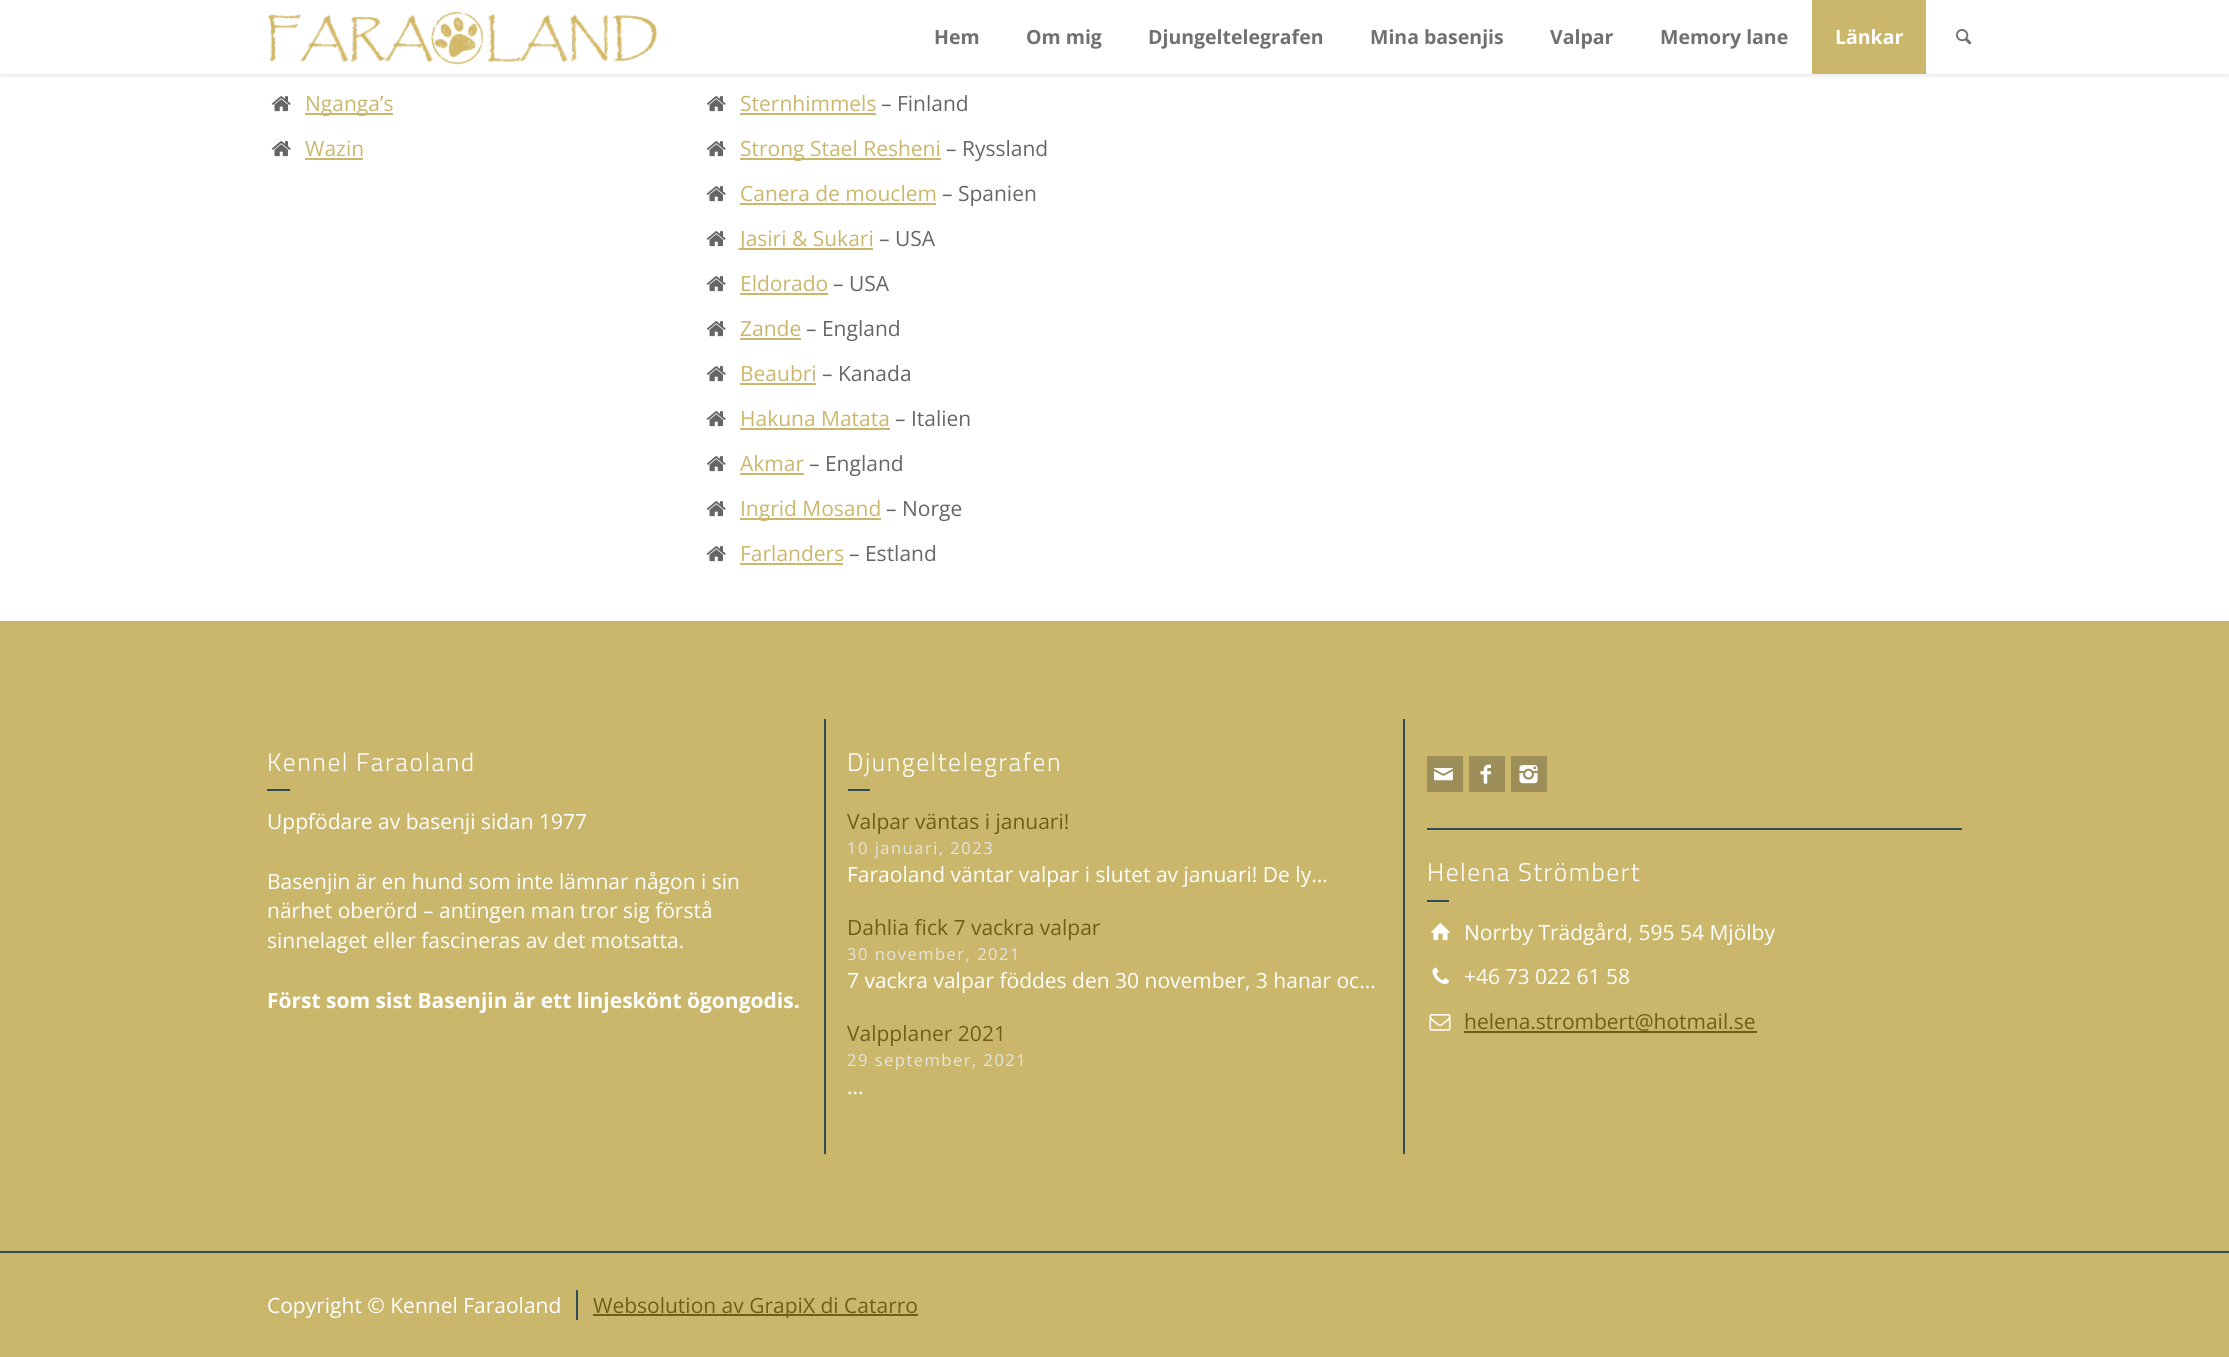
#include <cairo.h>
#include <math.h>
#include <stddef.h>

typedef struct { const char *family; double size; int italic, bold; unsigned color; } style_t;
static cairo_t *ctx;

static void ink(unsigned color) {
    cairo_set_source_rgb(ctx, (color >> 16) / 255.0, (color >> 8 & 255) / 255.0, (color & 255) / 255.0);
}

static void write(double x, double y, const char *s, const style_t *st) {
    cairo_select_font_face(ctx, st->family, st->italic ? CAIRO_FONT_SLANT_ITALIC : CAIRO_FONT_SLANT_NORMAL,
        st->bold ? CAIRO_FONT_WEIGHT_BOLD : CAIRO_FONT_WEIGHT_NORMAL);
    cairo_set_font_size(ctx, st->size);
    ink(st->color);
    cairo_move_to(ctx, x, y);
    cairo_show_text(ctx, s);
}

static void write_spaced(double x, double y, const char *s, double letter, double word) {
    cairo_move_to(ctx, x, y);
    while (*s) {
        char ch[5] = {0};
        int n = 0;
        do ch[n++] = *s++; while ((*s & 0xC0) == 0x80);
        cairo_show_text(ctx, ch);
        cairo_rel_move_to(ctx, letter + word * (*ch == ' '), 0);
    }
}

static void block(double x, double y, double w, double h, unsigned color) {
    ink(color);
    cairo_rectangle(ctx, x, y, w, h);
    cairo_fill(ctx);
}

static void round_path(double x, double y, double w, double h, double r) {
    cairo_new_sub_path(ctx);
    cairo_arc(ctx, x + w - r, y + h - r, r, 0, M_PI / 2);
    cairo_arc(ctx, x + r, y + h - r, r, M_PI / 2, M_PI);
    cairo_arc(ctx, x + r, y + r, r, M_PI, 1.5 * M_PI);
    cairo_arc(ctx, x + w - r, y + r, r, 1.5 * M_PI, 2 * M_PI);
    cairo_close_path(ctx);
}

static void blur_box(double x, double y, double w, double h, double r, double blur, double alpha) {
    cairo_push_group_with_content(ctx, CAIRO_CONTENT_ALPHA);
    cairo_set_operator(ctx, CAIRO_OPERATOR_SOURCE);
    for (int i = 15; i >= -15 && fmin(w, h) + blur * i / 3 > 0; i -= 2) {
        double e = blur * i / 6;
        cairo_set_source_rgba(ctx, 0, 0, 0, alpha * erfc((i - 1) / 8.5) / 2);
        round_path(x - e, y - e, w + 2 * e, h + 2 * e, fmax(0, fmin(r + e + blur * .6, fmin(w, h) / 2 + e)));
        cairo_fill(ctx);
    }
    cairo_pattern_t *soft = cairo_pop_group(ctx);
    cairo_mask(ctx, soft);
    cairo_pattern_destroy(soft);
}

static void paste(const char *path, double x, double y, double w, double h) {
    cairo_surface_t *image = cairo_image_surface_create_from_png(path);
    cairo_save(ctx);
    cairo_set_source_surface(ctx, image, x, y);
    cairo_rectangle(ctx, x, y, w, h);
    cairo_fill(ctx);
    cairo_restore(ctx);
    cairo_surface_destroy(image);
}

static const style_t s1 = {"Open Sans", 19.5, 0, 1, 0x707070};
static const style_t s2 = {"Open Sans", 19.5, 0, 1, 0xffffff};
static const style_t s3 = {"Open Sans", 21, 0, 0, 0xcbb76b};
static const style_t s4 = {"Open Sans", 21, 0, 0, 0x666666};
static const style_t s5 = {"Open Sans", 21, 0, 0, 0xffffff};
static const style_t s6 = {"Open Sans", 21, 0, 1, 0xffffff};
static const style_t s7 = {"Open Sans", 21, 0, 0, 0x715e16};

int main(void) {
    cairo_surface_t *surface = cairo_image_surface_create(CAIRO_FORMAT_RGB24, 2229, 1357);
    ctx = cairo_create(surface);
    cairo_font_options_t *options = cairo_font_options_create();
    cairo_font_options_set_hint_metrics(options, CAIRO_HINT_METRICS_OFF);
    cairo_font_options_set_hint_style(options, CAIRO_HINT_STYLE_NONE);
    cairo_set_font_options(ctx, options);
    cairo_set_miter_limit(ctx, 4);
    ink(0xcbb76b);
    cairo_paint(ctx);
    block(0, 74, 2229, 547, 0xffffff);
    ink(0x000000);
    blur_box(0, 3, 2229, 74, 0, 1.5, 0.07);
    block(0, 0, 2229, 74, 0xffffff);
    paste("pic1.png", 267, 11, 390, 54);
    write(934, 44, "Hem", &s1);
    write(1026, 44, "Om mig", &s1);
    write(1148, 44, "Djungeltelegrafen", &s1);
    write(1370, 44, "Mina basenjis", &s1);
    write(1550, 44, "Valpar", &s1);
    write(1660, 44, "Memory lane", &s1);
    block(1812, 0, 114, 74, 0xcbb76b);
    write(1835, 44, "Länkar", &s2);
    paste("pic2.png", 1956, 29, 16, 16);
    paste("pic3.png", 271, 96, 20, 16);
    block(305, 113, 88, 2, 0xcbb76b);
    write(305, 111, "Nganga’s", &s3);
    paste("pic3.png", 271, 141, 20, 16);
    write(305, 156, "Wazin", &s3);
    block(305, 158, 58, 2, 0xcbb76b);
    paste("pic3.png", 706, 96, 20, 16);
    write(740, 111, "Sternhimmels", &s3);
    block(740, 113, 136, 2, 0xcbb76b);
    write(881, 111, "– Finland", &s4);
    paste("pic3.png", 706, 141, 20, 16);
    block(740, 158, 201, 2, 0xcbb76b);
    write(740, 156, "Strong Stael Resheni", &s3);
    write(946, 156, "– Ryssland", &s4);
    paste("pic3.png", 706, 186, 20, 16);
    write(740, 201, "Canera de mouclem", &s3);
    block(740, 203, 196, 2, 0xcbb76b);
    write(942, 201, "– Spanien", &s4);
    paste("pic3.png", 706, 231, 20, 16);
    block(740, 248, 133, 2, 0xcbb76b);
    write(740, 246, "Jasiri & Sukari", &s3);
    write(879, 246, "– USA", &s4);
    paste("pic3.png", 706, 276, 20, 16);
    write(740, 291, "Eldorado", &s3);
    block(740, 293, 88, 2, 0xcbb76b);
    write(833, 291, "– USA", &s4);
    paste("pic3.png", 706, 321, 20, 16);
    write(740, 336, "Zande", &s3);
    block(740, 338, 61, 2, 0xcbb76b);
    write(806, 336, "– England", &s4);
    paste("pic3.png", 706, 366, 20, 16);
    write(740, 381, "Beaubri", &s3);
    block(740, 383, 76, 2, 0xcbb76b);
    write(822, 381, "– Kanada", &s4);
    paste("pic3.png", 706, 411, 20, 16);
    write(740, 426, "Hakuna Matata", &s3);
    block(740, 428, 150, 2, 0xcbb76b);
    write(895, 426, "– Italien", &s4);
    paste("pic3.png", 706, 456, 20, 16);
    write(740, 471, "Akmar", &s3);
    block(740, 473, 64, 2, 0xcbb76b);
    write(809, 471, "– England", &s4);
    paste("pic3.png", 706, 501, 20, 16);
    block(740, 518, 141, 2, 0xcbb76b);
    write(740, 516, "Ingrid Mosand", &s3);
    write(886, 516, "– Norge", &s4);
    paste("pic3.png", 706, 546, 20, 16);
    write(740, 561, "Farlanders", &s3);
    block(740, 563, 103, 2, 0xcbb76b);
    write(849, 561, "– Estland", &s4);
    cairo_select_font_face(ctx, "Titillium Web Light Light", CAIRO_FONT_SLANT_NORMAL, CAIRO_FONT_WEIGHT_NORMAL);
    cairo_set_font_size(ctx, 25.5);
    ink(0xffffff);
    write_spaced(267, 771, "Kennel Faraoland", 1.5, 0);
    block(267, 789, 23, 2, 0x324d5a);
    write(267, 829, "Uppfödare av basenji sidan 1977", &s5);
    write(267, 889, "Basenjin är en hund som inte lämnar någon i sin", &s5);
    write(267, 918, "närhet oberörd – antingen man tror sig förstå", &s5);
    write(267, 948, "sinnelaget eller fascineras av det motsatta.", &s5);
    write(267, 1008, "Först som sist Basenjin är ett linjeskönt ögongodis.", &s6);
    block(824, 719, 2, 435, 0x324d5a);
    cairo_select_font_face(ctx, "Titillium Web Light Light", CAIRO_FONT_SLANT_NORMAL, CAIRO_FONT_WEIGHT_NORMAL);
    cairo_set_font_size(ctx, 25.5);
    ink(0xffffff);
    write_spaced(847, 771, "Djungeltelegrafen", 1.5, 0);
    block(848, 789, 22, 2, 0x324d5a);
    write(847, 829, "Valpar väntas i januari!", &s7);
    cairo_set_font_size(ctx, 16.5);
    ink(0xe4e4e4);
    write_spaced(847, 854, "10 januari, 2023", 1.5, 0);
    write(847, 882, "Faraoland väntar valpar i slutet av januari! De ly...", &s5);
    write(847, 935, "Dahlia fick 7 vackra valpar", &s7);
    cairo_set_font_size(ctx, 16.5);
    ink(0xe4e4e4);
    write_spaced(847, 960, "30 november, 2021", 1.5, 0);
    write(847, 988, "7 vackra valpar föddes den 30 november, 3 hanar oc...", &s5);
    write(847, 1041, "Valpplaner 2021", &s7);
    cairo_set_font_size(ctx, 16.5);
    ink(0xe4e4e4);
    write_spaced(847, 1066, "29 september, 2021", 1.5, 0);
    write(847, 1094, "...", &s5);
    block(1403, 719, 2, 435, 0x324d5a);
    block(1427, 756, 36, 36, 0x9c8e59);
    paste("pic4.png", 1434, 768, 19, 13);
    block(1469, 756, 36, 36, 0x9c8e59);
    paste("pic5.png", 1480, 764, 11, 20);
    block(1511, 756, 36, 36, 0x9c8e59);
    paste("pic6.png", 1519, 765, 19, 19);
    block(1427, 828, 535, 2, 0x324d5a);
    cairo_select_font_face(ctx, "Titillium Web Light Light", CAIRO_FONT_SLANT_NORMAL, CAIRO_FONT_WEIGHT_NORMAL);
    cairo_set_font_size(ctx, 25.5);
    ink(0xffffff);
    write_spaced(1427, 881, "Helena Strömbert", 1.5, 0);
    block(1427, 900, 22, 2, 0x324d5a);
    paste("pic7.png", 1431, 923, 19, 18);
    write(1464, 940, "Norrby Trädgård, 595 54 Mjölby", &s5);
    paste("pic8.png", 1432, 967, 17, 18);
    write(1464, 984, "+46 73 022 61 58", &s5);
    paste("pic9.png", 1429, 1014, 22, 17);
    write(1464, 1029, "helena.strombert@hotmail.se", &s7);
    block(1464, 1031, 293, 2, 0x715e16);
    block(0, 1251, 2229, 2, 0x324d5a);
    write(267, 1313, "Copyright © Kennel Faraoland", &s5);
    block(576, 1290, 2, 30, 0x324d5a);
    block(593, 1314, 325, 2, 0x715e16);
    write(593, 1313, "Websolution av GrapiX di Catarro", &s7);
    cairo_surface_write_to_png(surface, "screenshot.png");
    cairo_font_options_destroy(options);
    cairo_destroy(ctx);
    cairo_surface_destroy(surface);
    return 0;
}
